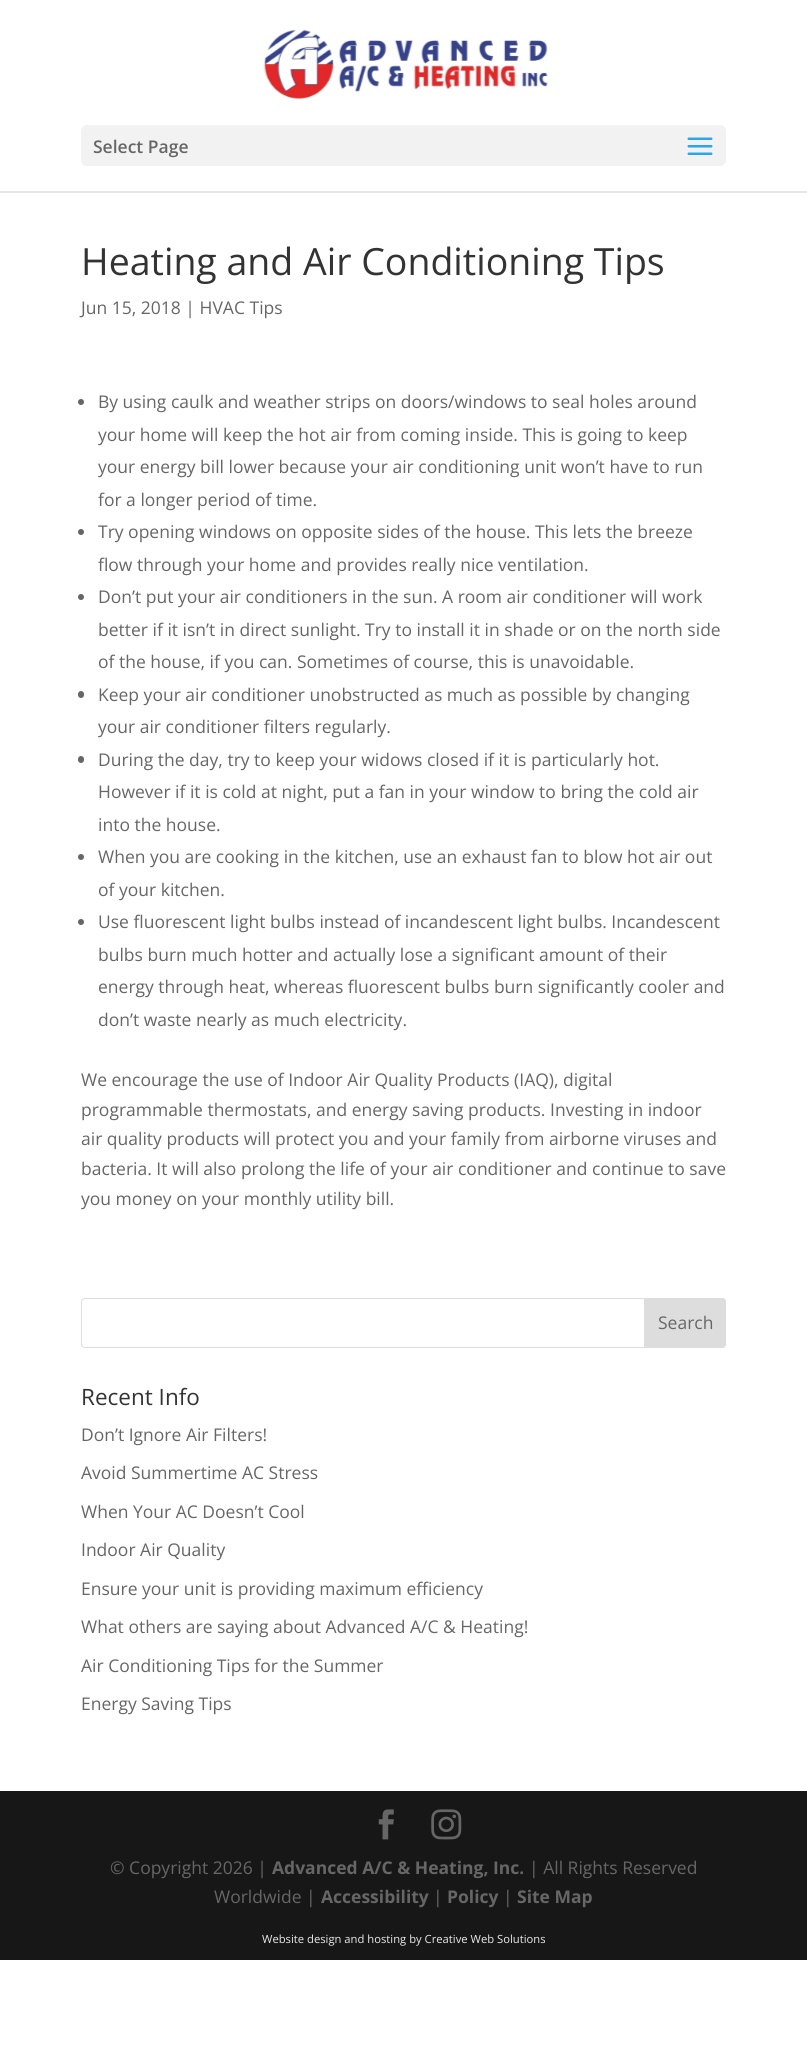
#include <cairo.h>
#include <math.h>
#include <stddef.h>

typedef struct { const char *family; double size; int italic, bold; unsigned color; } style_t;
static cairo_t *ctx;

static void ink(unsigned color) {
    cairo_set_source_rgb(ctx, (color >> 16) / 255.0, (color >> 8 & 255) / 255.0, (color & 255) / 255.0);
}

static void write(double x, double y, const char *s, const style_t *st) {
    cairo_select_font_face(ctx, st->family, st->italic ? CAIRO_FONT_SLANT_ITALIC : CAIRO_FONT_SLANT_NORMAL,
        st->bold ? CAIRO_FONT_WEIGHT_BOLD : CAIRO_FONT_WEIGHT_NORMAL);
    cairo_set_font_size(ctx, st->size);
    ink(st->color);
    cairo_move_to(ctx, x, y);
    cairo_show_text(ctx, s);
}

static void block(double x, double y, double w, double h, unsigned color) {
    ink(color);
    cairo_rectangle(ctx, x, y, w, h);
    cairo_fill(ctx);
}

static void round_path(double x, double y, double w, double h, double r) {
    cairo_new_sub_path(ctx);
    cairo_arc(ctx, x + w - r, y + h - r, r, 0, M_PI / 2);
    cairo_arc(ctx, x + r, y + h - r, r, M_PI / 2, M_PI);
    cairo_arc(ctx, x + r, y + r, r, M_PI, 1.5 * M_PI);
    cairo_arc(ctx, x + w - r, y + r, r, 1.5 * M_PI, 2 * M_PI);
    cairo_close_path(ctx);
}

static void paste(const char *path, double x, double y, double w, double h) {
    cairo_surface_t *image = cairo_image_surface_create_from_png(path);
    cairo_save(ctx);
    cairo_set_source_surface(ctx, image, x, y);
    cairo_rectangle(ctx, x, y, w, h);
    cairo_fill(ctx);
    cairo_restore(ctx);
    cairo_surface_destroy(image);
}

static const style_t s1 = {"Open Sans SemiBold", 17.5, 0, 0, 0x666666};
static const style_t s2 = {"Open Sans", 37.5, 0, 0, 0x333333};
static const style_t s3 = {"Open Sans", 17.5, 0, 0, 0x666666};
static const style_t s4 = {"Open Sans", 22.5, 0, 0, 0x333333};
static const style_t s5 = {"Open Sans", 17.5, 0, 1, 0x666666};
static const style_t s6 = {"Open Sans", 11.25, 0, 0, 0xeaeaea};

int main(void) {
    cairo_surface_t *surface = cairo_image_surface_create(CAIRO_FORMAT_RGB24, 807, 2064);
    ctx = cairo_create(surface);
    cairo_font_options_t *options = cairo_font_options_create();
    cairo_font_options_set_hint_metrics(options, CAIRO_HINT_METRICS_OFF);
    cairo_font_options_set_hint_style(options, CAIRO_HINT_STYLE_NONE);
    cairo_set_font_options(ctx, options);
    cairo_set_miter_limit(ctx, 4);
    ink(0xffffff);
    cairo_paint(ctx);
    ink(0xe6e6e6);
    cairo_new_path(ctx);
    cairo_move_to(ctx, 0, 191);
    cairo_line_to(ctx, 0, 193);
    cairo_line_to(ctx, 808, 193);
    cairo_line_to(ctx, 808, 1);
    cairo_line_to(ctx, 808, 191);
    cairo_close_path(ctx);
    cairo_fill(ctx);
    paste("pic1.png", 263, 29, 285, 71);
    ink(0xf2f2f2);
    round_path(81, 125, 645, 41, 6);
    cairo_fill(ctx);
    write(93, 153, "Select Page", &s1);
    paste("pic2.png", 687, 137, 26, 18);
    write(81, 275, "Heating and Air Conditioning Tips", &s2);
    write(81, 314, "Jun 15, 2018 | HVAC Tips", &s3);
    cairo_new_path(ctx);
    cairo_arc(ctx, 81, 402, 3, 0, 2 * M_PI);
    cairo_fill(ctx);
    write(98, 408, "By using caulk and weather strips on doors/windows to seal holes around", &s3);
    write(98, 441, "your home will keep the hot air from coming inside. This is going to keep", &s3);
    write(98, 473, "your energy bill lower because your air conditioning unit won’t have to run", &s3);
    write(98, 506, "for a longer period of time.", &s3);
    cairo_new_path(ctx);
    cairo_arc(ctx, 81, 532, 3, 0, 2 * M_PI);
    cairo_fill(ctx);
    write(98, 538, "Try opening windows on opposite sides of the house. This lets the breeze", &s3);
    write(98, 571, "flow through your home and provides really nice ventilation.", &s3);
    cairo_new_path(ctx);
    cairo_arc(ctx, 81, 597, 3, 0, 2 * M_PI);
    cairo_fill(ctx);
    write(98, 603, "Don’t put your air conditioners in the sun. A room air conditioner will work", &s3);
    write(98, 636, "better if it isn’t in direct sunlight. Try to install it in shade or on the north side", &s3);
    write(98, 668, "of the house, if you can. Sometimes of course, this is unavoidable.", &s3);
    round_path(78, 691, 6, 7, 3);
    cairo_fill(ctx);
    write(98, 701, "Keep your air conditioner unobstructed as much as possible by changing", &s3);
    write(98, 733, "your air conditioner filters regularly.", &s3);
    round_path(78, 756, 6, 7, 3);
    cairo_fill(ctx);
    write(98, 766, "During the day, try to keep your widows closed if it is particularly hot.", &s3);
    write(98, 798, "However if it is cold at night, put a fan in your window to bring the cold air", &s3);
    write(98, 831, "into the house.", &s3);
    cairo_new_path(ctx);
    cairo_arc(ctx, 81, 857, 3, 0, 2 * M_PI);
    cairo_fill(ctx);
    write(98, 863, "When you are cooking in the kitchen, use an exhaust fan to blow hot air out", &s3);
    write(98, 896, "of your kitchen.", &s3);
    cairo_new_path(ctx);
    cairo_arc(ctx, 81, 922, 3, 0, 2 * M_PI);
    cairo_fill(ctx);
    write(98, 928, "Use fluorescent light bulbs instead of incandescent light bulbs. Incandescent", &s3);
    write(98, 961, "bulbs burn much hotter and actually lose a significant amount of their", &s3);
    write(98, 993, "energy through heat, whereas fluorescent bulbs burn significantly cooler and", &s3);
    write(98, 1026, "don’t waste nearly as much electricity.", &s3);
    write(81, 1086, "We encourage the use of Indoor Air Quality Products (IAQ), digital", &s3);
    write(81, 1116, "programmable thermostats, and energy saving products. Investing in indoor", &s3);
    write(81, 1145, "air quality products will protect you and your family from airborne viruses and", &s3);
    write(81, 1175, "bacteria. It will also prolong the life of your air conditioner and continue to save", &s3);
    write(81, 1205, "you money on your monthly utility bill.", &s3);
    round_path(81.5, 1298.5, 644, 49, 3.5);
    ink(0xdddddd);
    cairo_set_line_width(ctx, 1);
    cairo_stroke(ctx);
    cairo_new_path(ctx);
    cairo_move_to(ctx, 644.5, 1298.5);
    cairo_line_to(ctx, 722, 1298.5);
    cairo_curve_to(ctx, 724, 1298.5, 725.5, 1300, 725.5, 1302);
    cairo_line_to(ctx, 725.5, 1344);
    cairo_curve_to(ctx, 725.5, 1346, 724, 1347.5, 722, 1347.5);
    cairo_line_to(ctx, 644.5, 1347.5);
    cairo_close_path(ctx);
    cairo_fill_preserve(ctx);
    cairo_stroke(ctx);
    write(658, 1329, "Search", &s3);
    write(81, 1405, "Recent Info", &s4);
    write(81, 1441, "Don’t Ignore Air Filters!", &s3);
    write(81, 1479, "Avoid Summertime AC Stress", &s3);
    write(81, 1518, "When Your AC Doesn’t Cool", &s3);
    write(81, 1556, "Indoor Air Quality", &s3);
    write(81, 1595, "Ensure your unit is providing maximum efficiency", &s3);
    write(81, 1633, "What others are saying about Advanced A/C & Heating!", &s3);
    write(81, 1672, "Air Conditioning Tips for the Summer", &s3);
    write(81, 1710, "Energy Saving Tips", &s3);
    block(0, 1791, 807, 169, 0x171717);
    paste("pic3.png", 378, 1809, 16, 31);
    paste("pic4.png", 431, 1809, 31, 31);
    write(110, 1874, "© Copyright 2026 |", &s3);
    write(272, 1874, "Advanced A/C & Heating, Inc.", &s5);
    write(529, 1874, "| All Rights Reserved", &s3);
    write(214, 1903, "Worldwide |", &s3);
    write(321, 1903, "Accessibility", &s5);
    write(433, 1903, "|", &s3);
    write(447, 1903, "Policy", &s5);
    write(503, 1903, "|", &s3);
    write(517, 1903, "Site Map", &s5);
    write(262, 1943, "Website design and hosting by Creative Web Solutions", &s6);
    cairo_surface_write_to_png(surface, "screenshot.png");
    cairo_font_options_destroy(options);
    cairo_destroy(ctx);
    cairo_surface_destroy(surface);
    return 0;
}
